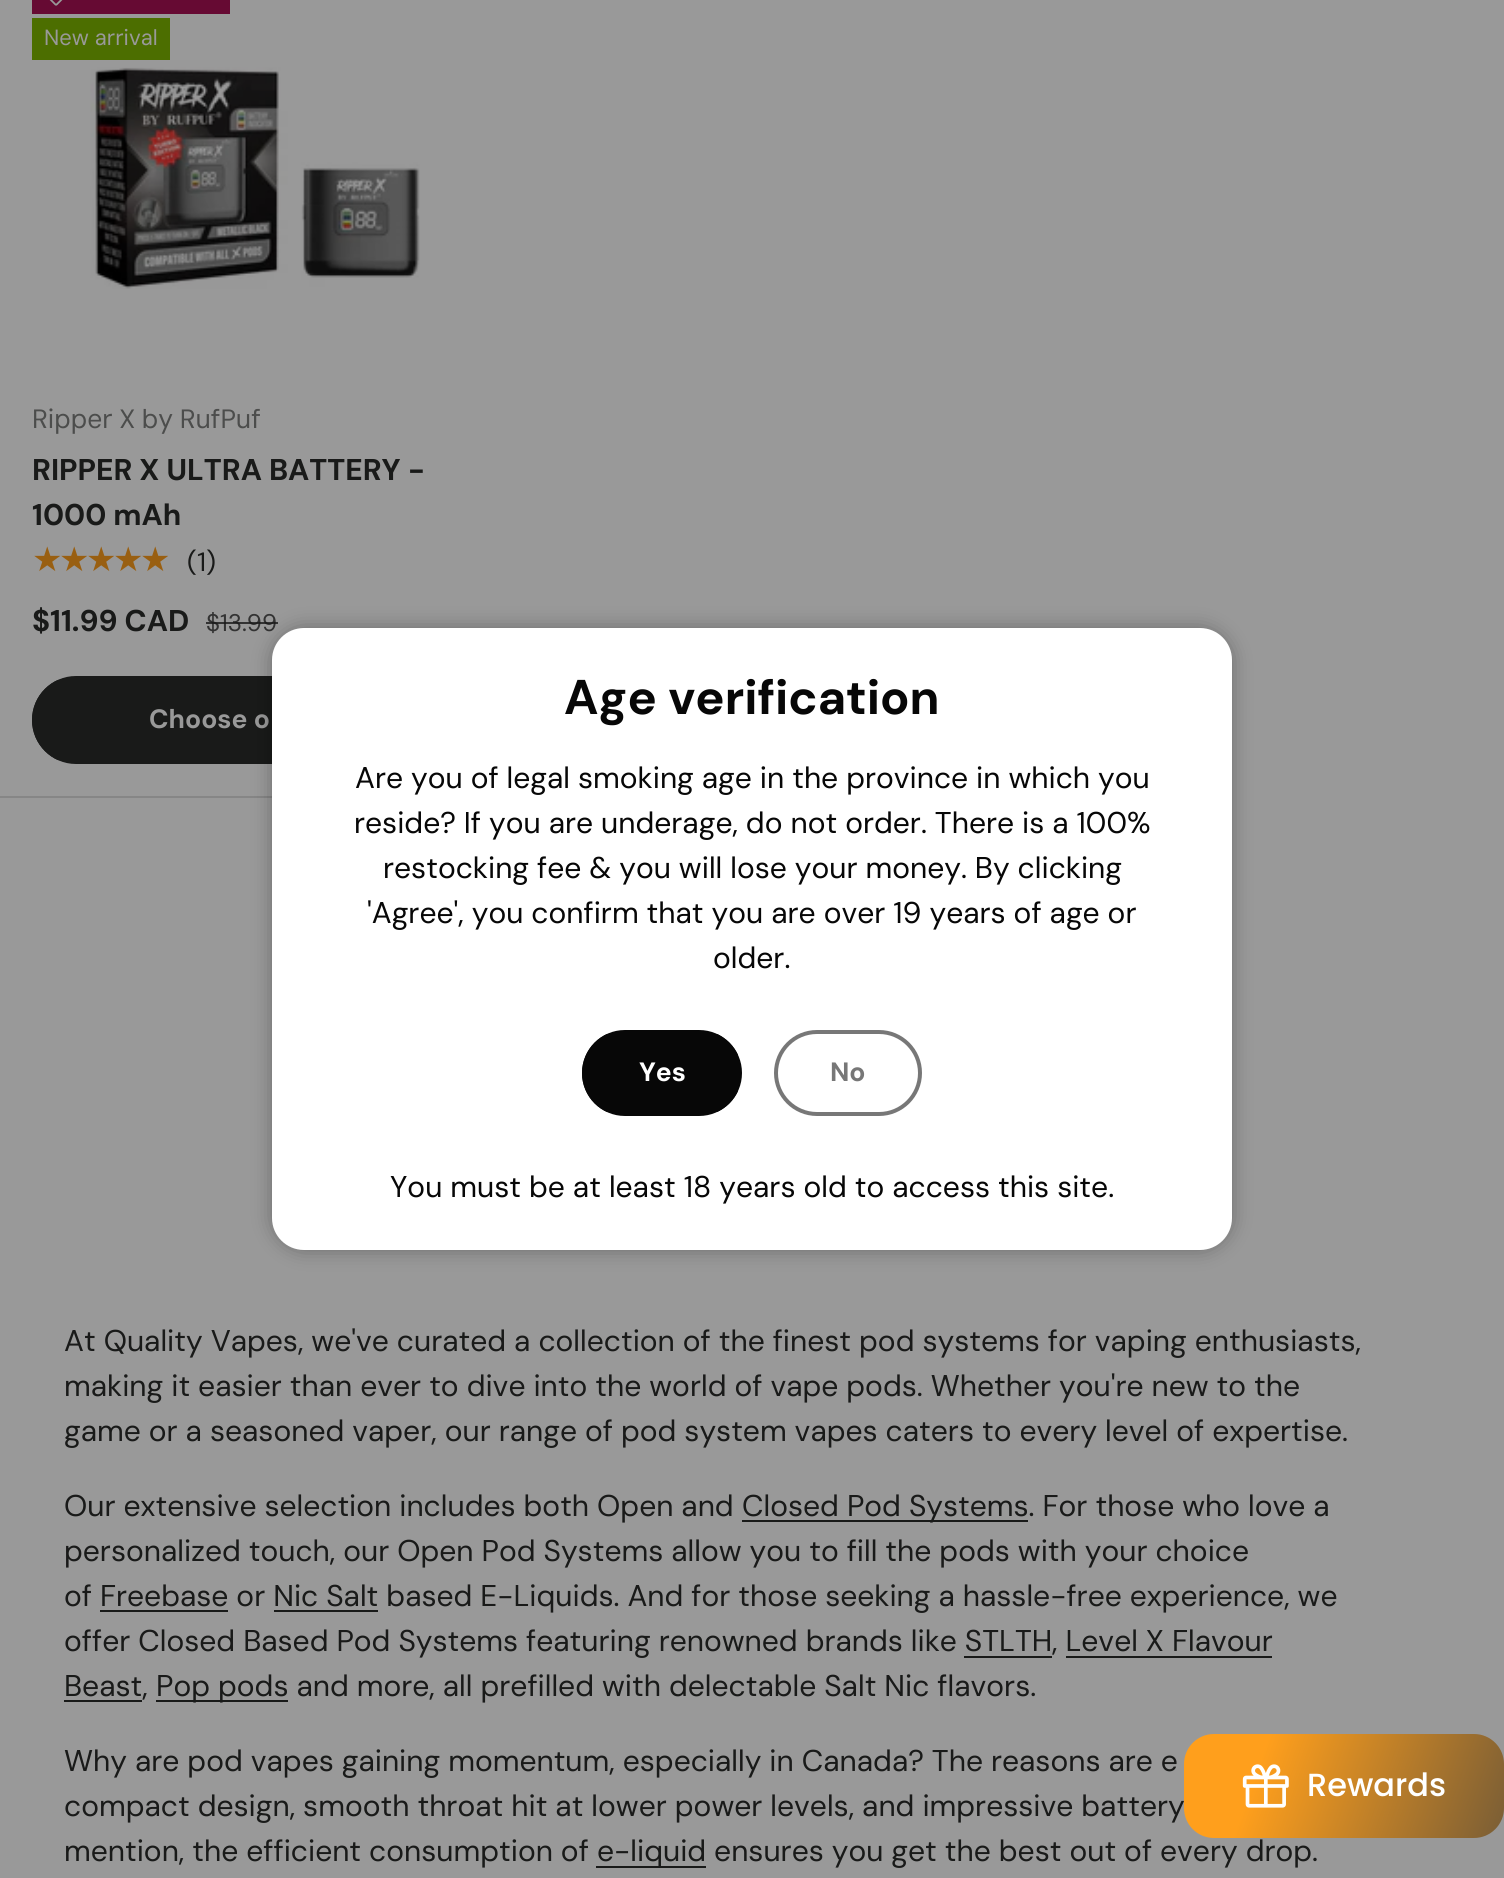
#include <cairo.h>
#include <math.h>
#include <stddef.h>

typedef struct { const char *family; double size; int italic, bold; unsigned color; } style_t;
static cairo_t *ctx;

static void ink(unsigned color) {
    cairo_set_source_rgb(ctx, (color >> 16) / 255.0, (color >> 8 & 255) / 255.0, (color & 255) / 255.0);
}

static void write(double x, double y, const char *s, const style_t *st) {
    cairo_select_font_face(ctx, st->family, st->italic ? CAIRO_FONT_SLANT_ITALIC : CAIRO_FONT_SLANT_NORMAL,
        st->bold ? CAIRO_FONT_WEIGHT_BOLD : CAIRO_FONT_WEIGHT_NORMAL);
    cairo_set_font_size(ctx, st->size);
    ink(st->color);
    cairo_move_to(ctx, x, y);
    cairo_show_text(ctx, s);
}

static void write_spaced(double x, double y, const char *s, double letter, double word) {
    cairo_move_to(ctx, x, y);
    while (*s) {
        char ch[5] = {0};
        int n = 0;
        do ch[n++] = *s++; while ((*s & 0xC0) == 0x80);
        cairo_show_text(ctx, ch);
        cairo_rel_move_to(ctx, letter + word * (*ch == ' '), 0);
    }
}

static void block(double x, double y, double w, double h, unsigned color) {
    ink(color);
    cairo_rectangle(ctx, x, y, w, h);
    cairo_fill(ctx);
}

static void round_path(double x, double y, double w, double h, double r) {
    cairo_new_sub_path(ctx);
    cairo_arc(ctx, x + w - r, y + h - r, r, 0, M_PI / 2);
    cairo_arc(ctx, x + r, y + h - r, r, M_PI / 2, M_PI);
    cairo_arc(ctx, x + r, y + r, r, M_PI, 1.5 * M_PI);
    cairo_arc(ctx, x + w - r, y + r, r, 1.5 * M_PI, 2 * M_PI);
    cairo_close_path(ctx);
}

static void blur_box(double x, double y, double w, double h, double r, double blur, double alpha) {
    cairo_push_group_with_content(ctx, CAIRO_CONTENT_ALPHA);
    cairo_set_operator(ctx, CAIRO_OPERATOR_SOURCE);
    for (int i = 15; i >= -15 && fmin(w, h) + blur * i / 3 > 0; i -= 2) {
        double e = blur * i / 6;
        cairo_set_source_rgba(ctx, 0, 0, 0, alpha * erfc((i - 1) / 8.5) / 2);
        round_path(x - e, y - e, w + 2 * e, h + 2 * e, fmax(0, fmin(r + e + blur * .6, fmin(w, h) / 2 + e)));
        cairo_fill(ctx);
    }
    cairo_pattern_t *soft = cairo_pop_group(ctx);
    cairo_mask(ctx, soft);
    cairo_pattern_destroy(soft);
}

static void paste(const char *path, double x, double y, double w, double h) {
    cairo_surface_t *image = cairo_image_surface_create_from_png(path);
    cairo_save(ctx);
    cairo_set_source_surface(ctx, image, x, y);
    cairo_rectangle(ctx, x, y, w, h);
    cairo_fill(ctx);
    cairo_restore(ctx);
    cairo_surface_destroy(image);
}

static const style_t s1 = {"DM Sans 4", 22, 0, 0, 0x999999};
static const style_t s2 = {"DM Sans", 30, 0, 1, 0x191a19};
static const style_t s3 = {"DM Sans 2", 26.5, 0, 0, 0x191a19};
static const style_t s4 = {"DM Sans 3", 24, 0, 0, 0x333333};
static const style_t s5 = {"DM Sans 2", 26.5, 0, 1, 0x999999};
static const style_t s6 = {"DM Sans", 30, 0, 0, 0x191a19};
static const style_t s7 = {"DM Sans 3", 48.75, 0, 1, 0x070707};
static const style_t s8 = {"DM Sans", 30, 0, 0, 0x070707};
static const style_t s9 = {"DM Sans 2", 26.5, 0, 1, 0xffffff};
static const style_t s10 = {"DM Sans 2", 26.5, 0, 1, 0x777777};
static const style_t s11 = {"Poppins Medium", 32, 0, 0, 0xffffff};

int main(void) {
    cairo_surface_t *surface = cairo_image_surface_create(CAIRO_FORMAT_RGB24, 1504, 1878);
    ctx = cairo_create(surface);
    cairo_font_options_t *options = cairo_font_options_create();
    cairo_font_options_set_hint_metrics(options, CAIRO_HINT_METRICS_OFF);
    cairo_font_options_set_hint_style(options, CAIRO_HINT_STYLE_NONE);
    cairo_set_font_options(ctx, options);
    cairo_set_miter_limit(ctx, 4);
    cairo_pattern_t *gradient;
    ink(0x999999);
    cairo_paint(ctx);
    block(0, 796, 272, 2, 0x868686);
    block(32, 0, 198, 14, 0x660a33);
    paste("pic1.png", 49, 0, 14, 6);
    block(32, 18, 138, 42, 0x4c6e00);
    write(44, 45, "New arrival", &s1);
    paste("pic2.png", 90, 67, 330, 222);
    cairo_select_font_face(ctx, "DM Sans 2", CAIRO_FONT_SLANT_NORMAL, CAIRO_FONT_WEIGHT_NORMAL);
    cairo_set_font_size(ctx, 26.5);
    ink(0x4c4d4c);
    write_spaced(32, 428, "Ripper X by RufPuf", 0, -0.5);
    write(32, 480, "RIPPER X ULTRA BATTERY -", &s2);
    write(32, 525, "1000 mAh", &s2);
    cairo_select_font_face(ctx, "DejaVu Sans", CAIRO_FONT_SLANT_NORMAL, CAIRO_FONT_WEIGHT_NORMAL);
    cairo_set_font_size(ctx, 34);
    gradient = cairo_pattern_create_linear(32, 560, 168, 560);
    cairo_pattern_add_color_stop_rgba(gradient, 1, 0.6, 0.373, 0.067, 1);
    cairo_pattern_add_color_stop_rgba(gradient, 1, 0.6, 0.557, 0.494, 1);
    cairo_set_source(ctx, gradient);
    cairo_pattern_destroy(gradient);
    write_spaced(32, 571, "★★★★★", -3.5, 0);
    write(187, 571, "(1)", &s3);
    write(32, 631, "$11.99 CAD", &s2);
    write(206, 631, "$13.99", &s4);
    cairo_set_source_rgba(ctx, 0.098, 0.102, 0.098, 0.8);
    cairo_rectangle(ctx, 206, 622, 72, 2);
    cairo_fill(ctx);
    cairo_save(ctx);
    round_path(32, 676, 438, 88, 44);
    cairo_clip(ctx);
    gradient = cairo_pattern_create_linear(-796, 566, 438, 874);
    cairo_pattern_add_color_stop_rgba(gradient, 0.6, 0.192, 0.196, 0.192, 1);
    cairo_pattern_add_color_stop_rgba(gradient, 0.6, 0.098, 0.102, 0.098, 1);
    cairo_pattern_add_color_stop_rgba(gradient, 1, 0.098, 0.102, 0.098, 1);
    cairo_set_source(ctx, gradient);
    cairo_pattern_destroy(gradient);
    cairo_rectangle(ctx, 32, 680, 240, 80);
    cairo_fill(ctx);
    cairo_restore(ctx);
    round_path(34, 678, 434, 84, 42);
    ink(0x191a19);
    cairo_set_line_width(ctx, 4);
    cairo_stroke(ctx);
    write(149, 728, "Choose o", &s5);
    write(64, 1351, "At Quality Vapes, we've curated a collection of the finest pod systems for vaping enthusiasts,", &s6);
    write(64, 1396, "making it easier than ever to dive into the world of vape pods. Whether you're new to the", &s6);
    write(64, 1441, "game or a seasoned vaper, our range of pod system vapes caters to every level of expertise.", &s6);
    write(64, 1516, "Our extensive selection includes both Open and", &s6);
    block(742, 1520, 286, 2, 0x191a19);
    write(742, 1516, "Closed Pod Systems. For those who love a", &s6);
    write(64, 1561, "personalized touch, our Open Pod Systems allow you to fill the pods with your choice", &s6);
    write(64, 1606, "of Freebase or Nic Salt based E-Liquids. And for those seeking a hassle-free experience, we", &s6);
    block(100, 1610, 128, 2, 0x191a19);
    block(274, 1610, 104, 2, 0x191a19);
    write(64, 1651, "offer Closed Based Pod Systems featuring renowned brands like STLTH, Level X Flavour", &s6);
    block(964, 1656, 88, 2, 0x191a19);
    write(64, 1696, "Beast,", &s6);
    block(1066, 1656, 206, 2, 0x191a19);
    block(64, 1700, 78, 2, 0x191a19);
    block(156, 1700, 132, 2, 0x191a19);
    write(156, 1696, "Pop pods and more, all prefilled with delectable Salt Nic flavors.", &s6);
    write(64, 1771, "Why are pod vapes gaining momentum, especially in Canada? The reasons are e", &s6);
    write(64, 1816, "compact design, smooth throat hit at lower power levels, and impressive battery", &s6);
    write(64, 1861, "mention, the efficient consumption of", &s6);
    block(596, 1866, 110, 2, 0x191a19);
    write(597, 1861, "e-liquid ensures you get the best out of every drop.", &s6);
    ink(0x000000);
    blur_box(272, 628, 960, 622, 32, 10, 0.3);
    ink(0xffffff);
    round_path(272, 628, 960, 622, 32);
    cairo_fill(ctx);
    write(564, 714, "Age verification", &s7);
    write(355, 788, "Are you of legal smoking age in the province in which you", &s8);
    write(354, 833, "reside? If you are underage, do not order. There is a 100%", &s8);
    write(383, 878, "restocking fee & you will lose your money. By clicking", &s8);
    write(367, 923, "'Agree', you confirm that you are over 19 years of age or", &s8);
    write(713, 968, "older.", &s8);
    cairo_save(ctx);
    round_path(582, 1030, 160, 86, 43);
    cairo_clip(ctx);
    gradient = cairo_pattern_create_linear(286, 1017, 734, 1129);
    cairo_pattern_add_color_stop_rgba(gradient, 0.6, 0.204, 0.204, 0.204, 1);
    cairo_pattern_add_color_stop_rgba(gradient, 0.6, 0.027, 0.027, 0.027, 1);
    cairo_pattern_add_color_stop_rgba(gradient, 1, 0.027, 0.027, 0.027, 1);
    cairo_set_source(ctx, gradient);
    cairo_pattern_destroy(gradient);
    cairo_rectangle(ctx, 582, 1034, 156, 78);
    cairo_fill(ctx);
    cairo_restore(ctx);
    round_path(584, 1032, 156, 82, 41);
    cairo_stroke(ctx);
    write(639, 1081, "Yes", &s9);
    round_path(776, 1032, 144, 82, 41);
    ink(0x777777);
    cairo_stroke(ctx);
    write(830, 1081, "No", &s10);
    write(390, 1197, "You must be at least 18 years old to access this site.", &s8);
    gradient = cairo_pattern_create_linear(1186, 1730, 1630, 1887);
    cairo_pattern_add_color_stop_rgba(gradient, 0.17, 1, 0.624, 0.11, 1);
    cairo_pattern_add_color_stop_rgba(gradient, 1, 0.2, 0.231, 0.263, 1);
    cairo_set_source(ctx, gradient);
    cairo_pattern_destroy(gradient);
    round_path(1184, 1734, 320, 104, 30);
    cairo_fill(ctx);
    paste("pic3.png", 1242, 1764, 47, 44);
    write(1307, 1796, "Rewards", &s11);
    cairo_surface_write_to_png(surface, "screenshot.png");
    cairo_font_options_destroy(options);
    cairo_destroy(ctx);
    cairo_surface_destroy(surface);
    return 0;
}
